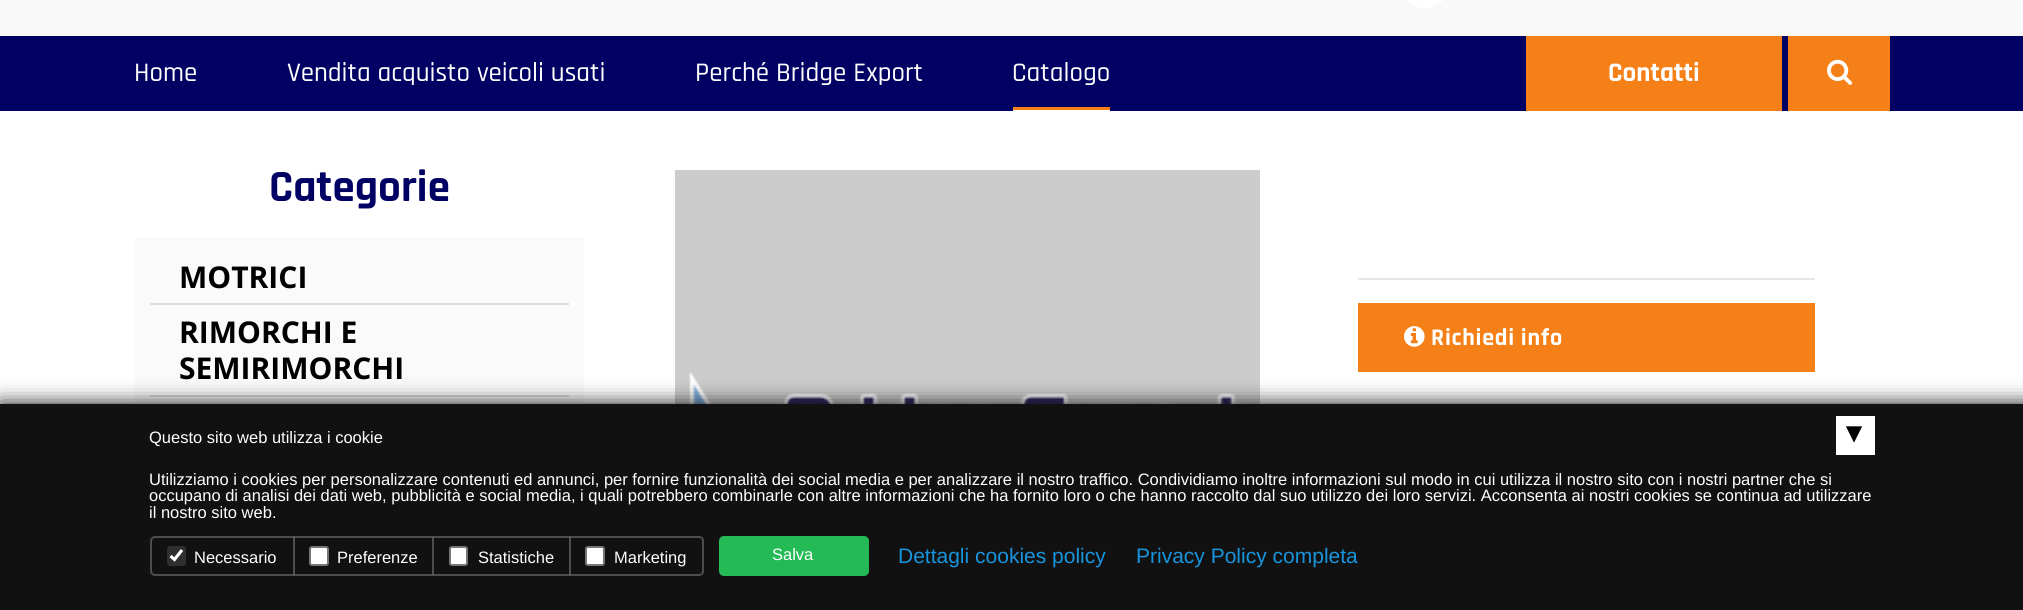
#include <cairo.h>
#include <math.h>
#include <stddef.h>

typedef struct { const char *family; double size; int italic, bold; unsigned color; } style_t;
static cairo_t *ctx;

static void ink(unsigned color) {
    cairo_set_source_rgb(ctx, (color >> 16) / 255.0, (color >> 8 & 255) / 255.0, (color & 255) / 255.0);
}

static void write(double x, double y, const char *s, const style_t *st) {
    cairo_select_font_face(ctx, st->family, st->italic ? CAIRO_FONT_SLANT_ITALIC : CAIRO_FONT_SLANT_NORMAL,
        st->bold ? CAIRO_FONT_WEIGHT_BOLD : CAIRO_FONT_WEIGHT_NORMAL);
    cairo_set_font_size(ctx, st->size);
    ink(st->color);
    cairo_move_to(ctx, x, y);
    cairo_show_text(ctx, s);
}

static void write_spaced(double x, double y, const char *s, double letter, double word) {
    cairo_move_to(ctx, x, y);
    while (*s) {
        char ch[5] = {0};
        int n = 0;
        do ch[n++] = *s++; while ((*s & 0xC0) == 0x80);
        cairo_show_text(ctx, ch);
        cairo_rel_move_to(ctx, letter + word * (*ch == ' '), 0);
    }
}

static void block(double x, double y, double w, double h, unsigned color) {
    ink(color);
    cairo_rectangle(ctx, x, y, w, h);
    cairo_fill(ctx);
}

static void round_path(double x, double y, double w, double h, double r) {
    cairo_new_sub_path(ctx);
    cairo_arc(ctx, x + w - r, y + h - r, r, 0, M_PI / 2);
    cairo_arc(ctx, x + r, y + h - r, r, M_PI / 2, M_PI);
    cairo_arc(ctx, x + r, y + r, r, M_PI, 1.5 * M_PI);
    cairo_arc(ctx, x + w - r, y + r, r, 1.5 * M_PI, 2 * M_PI);
    cairo_close_path(ctx);
}

static void blur_box(double x, double y, double w, double h, double r, double blur, double alpha) {
    cairo_push_group_with_content(ctx, CAIRO_CONTENT_ALPHA);
    cairo_set_operator(ctx, CAIRO_OPERATOR_SOURCE);
    for (int i = 15; i >= -15 && fmin(w, h) + blur * i / 3 > 0; i -= 2) {
        double e = blur * i / 6;
        cairo_set_source_rgba(ctx, 0, 0, 0, alpha * erfc((i - 1) / 8.5) / 2);
        round_path(x - e, y - e, w + 2 * e, h + 2 * e, fmax(0, fmin(r + e + blur * .6, fmin(w, h) / 2 + e)));
        cairo_fill(ctx);
    }
    cairo_pattern_t *soft = cairo_pop_group(ctx);
    cairo_mask(ctx, soft);
    cairo_pattern_destroy(soft);
}

static void paste(const char *path, double x, double y, double w, double h) {
    cairo_surface_t *image = cairo_image_surface_create_from_png(path);
    cairo_save(ctx);
    cairo_set_source_surface(ctx, image, x, y);
    cairo_rectangle(ctx, x, y, w, h);
    cairo_fill(ctx);
    cairo_restore(ctx);
    cairo_surface_destroy(image);
}

static const style_t s1 = {"Rajdhani Medium", 27, 0, 0, 0xffffff};
static const style_t s2 = {"Rajdhani", 27, 0, 1, 0xffffff};
static const style_t s3 = {"Rajdhani", 45, 0, 1, 0x010164};
static const style_t s4 = {"Open Sans", 30, 0, 1, 0x000000};
static const style_t s5 = {"Liberation Sans", 16.5, 0, 0, 0xffffff};
static const style_t s6 = {"DejaVu Sans", 30, 0, 1, 0x000000};
static const style_t s7 = {"Liberation Sans", 21, 0, 0, 0x1894dc};

int main(void) {
    cairo_surface_t *surface = cairo_image_surface_create(CAIRO_FORMAT_RGB24, 2023, 610);
    ctx = cairo_create(surface);
    cairo_font_options_t *options = cairo_font_options_create();
    cairo_font_options_set_hint_metrics(options, CAIRO_HINT_METRICS_OFF);
    cairo_font_options_set_hint_style(options, CAIRO_HINT_STYLE_NONE);
    cairo_set_font_options(ctx, options);
    cairo_set_miter_limit(ctx, 4);
    ink(0xffffff);
    cairo_paint(ctx);
    block(0, 0, 2023, 36, 0xf9f9f9);
    ink(0xffffff);
    round_path(1398, -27, 53, 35, 26.5);
    cairo_fill(ctx);
    block(0, 36, 2023, 75, 0x010164);
    write(134, 81, "Home", &s1);
    write(287, 81, "Vendita acquisto veicoli usati", &s1);
    write(695, 81, "Perché Bridge Export", &s1);
    write(1012, 81, "Catalogo", &s1);
    block(1013, 110, 97, 1, 0xffffff);
    block(1013, 107, 97, 3, 0xf68018);
    block(1526, 36, 256, 75, 0xf68018);
    write(1608, 81, "Contatti", &s2);
    block(1788, 36, 102, 75, 0xf68018);
    paste("pic1.png", 1827, 59, 25, 26);
    write(269, 201, "Categorie", &s3);
    block(135, 237, 449, 167, 0xfafafa);
    block(150, 303, 419, 2, 0xdddddd);
    write(179, 288, "MOTRICI", &s4);
    block(150, 395, 419, 2, 0xdddddd);
    write(179, 343, "RIMORCHI E", &s4);
    write(179, 379, "SEMIRIMORCHI", &s4);
    block(675, 170, 585, 234, 0xcccccc);
    paste("pic2.png", 689, 372, 555, 32);
    block(1358, 278, 457, 2, 0xe6e6e6);
    block(1358, 303, 457, 69, 0xf68018);
    paste("pic3.png", 1404, 326, 21, 21);
    cairo_select_font_face(ctx, "Rajdhani", CAIRO_FONT_SLANT_NORMAL, CAIRO_FONT_WEIGHT_BOLD);
    cairo_set_font_size(ctx, 24);
    ink(0xffffff);
    write_spaced(1431, 345, "Richiedi info", 0.75, 0);
    ink(0x121212);
    blur_box(0, 404, 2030, 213, 0, 10.5, 1);
    block(0, 404, 2023, 206, 0x111111);
    write(149, 443, "Questo sito web utilizza i cookie", &s5);
    block(1836, 416, 39, 39, 0xffffff);
    cairo_save(ctx);
    cairo_translate(ctx, 1862, 426);
    cairo_rotate(ctx, 180 * M_PI / 180);
    write(0, 0, "▴", &s6);
    cairo_restore(ctx);
    write(149, 485, "Utilizziamo i cookies per personalizzare contenuti ed annunci, per fornire funzionalità dei social media e per analizzare il nostro traffico. Condividiamo inoltre informazioni sul modo in cui utilizza il nostro sito con i nostri partner che si", &s5);
    write(149, 501, "occupano di analisi dei dati web, pubblicità e social media, i quali potrebbero combinarle con altre informazioni che ha fornito loro o che hanno raccolto dal suo utilizzo dei loro servizi. Acconsenta ai nostri cookies se continua ad utilizzare", &s5);
    write(149, 518, "il nostro sito web.", &s5);
    round_path(151, 537, 552, 38, 4);
    ink(0x4d4d4d);
    cairo_stroke(ctx);
    cairo_set_source_rgba(ctx, 0.51, 0.51, 0.51, 0.53);
    cairo_rectangle(ctx, 293, 537, 2, 38);
    cairo_fill(ctx);
    ink(0x2f2f2f);
    round_path(167, 546, 19, 20, 3);
    cairo_fill(ctx);
    cairo_new_path(ctx);
    cairo_move_to(ctx, 170.5, 556);
    cairo_line_to(ctx, 174.5, 559.5);
    cairo_line_to(ctx, 182, 550);
    ink(0xffffff);
    cairo_set_line_width(ctx, 3.1);
    cairo_stroke(ctx);
    write(194, 563, "Necessario", &s5);
    cairo_set_source_rgba(ctx, 0.51, 0.51, 0.51, 0.53);
    cairo_rectangle(ctx, 432, 537, 2, 38);
    cairo_fill(ctx);
    ink(0xffffff);
    round_path(310, 547, 18, 18, 2);
    cairo_fill_preserve(ctx);
    ink(0x767676);
    cairo_set_line_width(ctx, 2);
    cairo_stroke(ctx);
    write(337, 563, "Preferenze", &s5);
    cairo_set_source_rgba(ctx, 0.51, 0.51, 0.51, 0.53);
    cairo_rectangle(ctx, 569, 537, 2, 38);
    cairo_fill(ctx);
    ink(0xffffff);
    round_path(450, 547, 17, 18, 2);
    cairo_fill_preserve(ctx);
    ink(0x767676);
    cairo_stroke(ctx);
    write(478, 563, "Statistiche", &s5);
    round_path(586, 547, 18, 18, 2);
    cairo_fill_preserve(ctx);
    ink(0x767676);
    cairo_stroke(ctx);
    write(614, 563, "Marketing", &s5);
    ink(0x24bb56);
    round_path(719, 536, 150, 40, 5);
    cairo_fill(ctx);
    write(772, 560, "Salva", &s5);
    write(898, 563, "Dettagli cookies policy", &s7);
    write(1136, 563, "Privacy Policy completa", &s7);
    cairo_surface_write_to_png(surface, "screenshot.png");
    cairo_font_options_destroy(options);
    cairo_destroy(ctx);
    cairo_surface_destroy(surface);
    return 0;
}
